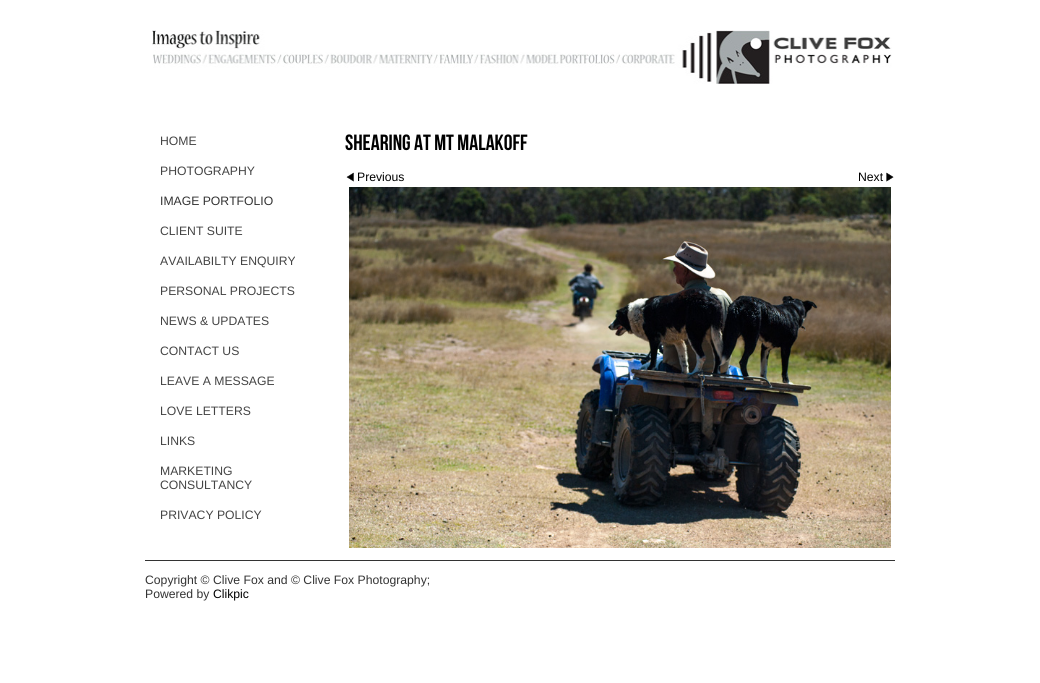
#include <cairo.h>
#include <math.h>
#include <stddef.h>

typedef struct { const char *family; double size; int italic, bold; unsigned color; } style_t;
static cairo_t *ctx;

static void ink(unsigned color) {
    cairo_set_source_rgb(ctx, (color >> 16) / 255.0, (color >> 8 & 255) / 255.0, (color & 255) / 255.0);
}

static void write(double x, double y, const char *s, const style_t *st) {
    cairo_select_font_face(ctx, st->family, st->italic ? CAIRO_FONT_SLANT_ITALIC : CAIRO_FONT_SLANT_NORMAL,
        st->bold ? CAIRO_FONT_WEIGHT_BOLD : CAIRO_FONT_WEIGHT_NORMAL);
    cairo_set_font_size(ctx, st->size);
    ink(st->color);
    cairo_move_to(ctx, x, y);
    cairo_show_text(ctx, s);
}

static void block(double x, double y, double w, double h, unsigned color) {
    ink(color);
    cairo_rectangle(ctx, x, y, w, h);
    cairo_fill(ctx);
}

static void paste(const char *path, double x, double y, double w, double h) {
    cairo_surface_t *image = cairo_image_surface_create_from_png(path);
    cairo_save(ctx);
    cairo_set_source_surface(ctx, image, x, y);
    cairo_rectangle(ctx, x, y, w, h);
    cairo_fill(ctx);
    cairo_restore(ctx);
    cairo_surface_destroy(image);
}

static const style_t s1 = {"Liberation Sans", 12.2, 0, 0, 0x444444};
static const style_t s2 = {"Liberation Sans", 12.2, 0, 0, 0x333333};
static const style_t s3 = {"Bebas Neue", 22, 0, 0, 0x000000};
static const style_t s4 = {"Liberation Sans", 12.2, 0, 0, 0x000000};

int main(void) {
    cairo_surface_t *surface = cairo_image_surface_create(CAIRO_FORMAT_RGB24, 1040, 683);
    ctx = cairo_create(surface);
    cairo_font_options_t *options = cairo_font_options_create();
    cairo_font_options_set_hint_metrics(options, CAIRO_HINT_METRICS_OFF);
    cairo_font_options_set_hint_style(options, CAIRO_HINT_STYLE_NONE);
    cairo_set_font_options(ctx, options);
    cairo_set_miter_limit(ctx, 4);
    ink(0xffffff);
    cairo_paint(ctx);
    paste("pic1.png", 152, 30, 740, 54);
    write(160, 145, "HOME", &s1);
    write(160, 175, "PHOTOGRAPHY", &s1);
    write(160, 205, "IMAGE PORTFOLIO", &s2);
    write(160, 235, "CLIENT SUITE", &s1);
    write(160, 265, "AVAILABILTY ENQUIRY", &s1);
    write(160, 295, "PERSONAL PROJECTS", &s1);
    write(160, 325, "NEWS & UPDATES", &s1);
    write(160, 355, "CONTACT US", &s1);
    write(160, 385, "LEAVE A MESSAGE", &s1);
    write(160, 415, "LOVE LETTERS", &s1);
    write(160, 445, "LINKS", &s1);
    write(160, 475, "MARKETING", &s1);
    write(160, 489, "CONSULTANCY", &s1);
    write(160, 519, "PRIVACY POLICY", &s1);
    write(345, 150, "Shearing at Mt Malakoff", &s3);
    paste("pic2.png", 346, 172, 8, 10);
    write(357, 181, "Previous", &s4);
    write(858, 181, "Next", &s4);
    paste("pic3.png", 886, 172, 8, 10);
    paste("pic4.png", 349, 187, 542, 361);
    block(145, 560, 750, 1, 0x333333);
    write(145, 584, "Copyright © Clive Fox and © Clive Fox Photography;", &s2);
    write(145, 598, "Powered by", &s2);
    write(213, 598, "Clikpic", &s4);
    cairo_surface_write_to_png(surface, "screenshot.png");
    cairo_font_options_destroy(options);
    cairo_destroy(ctx);
    cairo_surface_destroy(surface);
    return 0;
}
